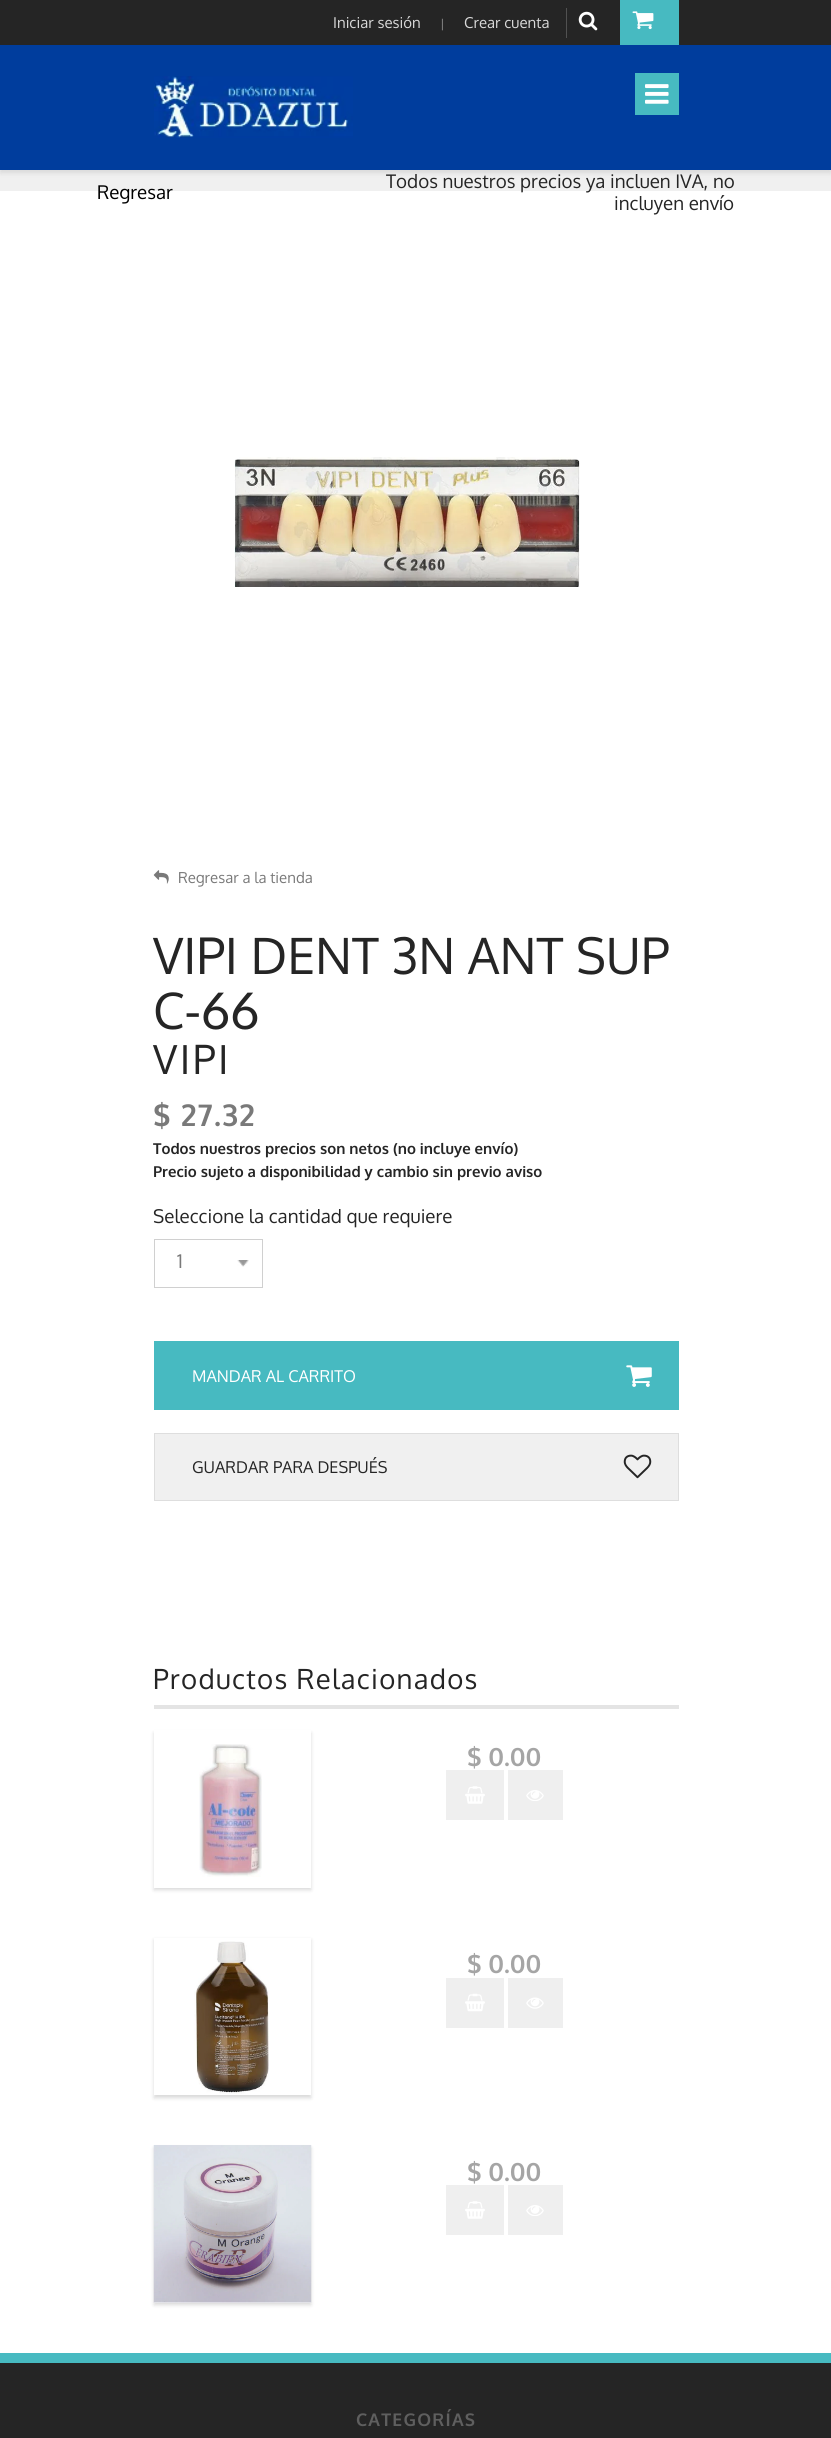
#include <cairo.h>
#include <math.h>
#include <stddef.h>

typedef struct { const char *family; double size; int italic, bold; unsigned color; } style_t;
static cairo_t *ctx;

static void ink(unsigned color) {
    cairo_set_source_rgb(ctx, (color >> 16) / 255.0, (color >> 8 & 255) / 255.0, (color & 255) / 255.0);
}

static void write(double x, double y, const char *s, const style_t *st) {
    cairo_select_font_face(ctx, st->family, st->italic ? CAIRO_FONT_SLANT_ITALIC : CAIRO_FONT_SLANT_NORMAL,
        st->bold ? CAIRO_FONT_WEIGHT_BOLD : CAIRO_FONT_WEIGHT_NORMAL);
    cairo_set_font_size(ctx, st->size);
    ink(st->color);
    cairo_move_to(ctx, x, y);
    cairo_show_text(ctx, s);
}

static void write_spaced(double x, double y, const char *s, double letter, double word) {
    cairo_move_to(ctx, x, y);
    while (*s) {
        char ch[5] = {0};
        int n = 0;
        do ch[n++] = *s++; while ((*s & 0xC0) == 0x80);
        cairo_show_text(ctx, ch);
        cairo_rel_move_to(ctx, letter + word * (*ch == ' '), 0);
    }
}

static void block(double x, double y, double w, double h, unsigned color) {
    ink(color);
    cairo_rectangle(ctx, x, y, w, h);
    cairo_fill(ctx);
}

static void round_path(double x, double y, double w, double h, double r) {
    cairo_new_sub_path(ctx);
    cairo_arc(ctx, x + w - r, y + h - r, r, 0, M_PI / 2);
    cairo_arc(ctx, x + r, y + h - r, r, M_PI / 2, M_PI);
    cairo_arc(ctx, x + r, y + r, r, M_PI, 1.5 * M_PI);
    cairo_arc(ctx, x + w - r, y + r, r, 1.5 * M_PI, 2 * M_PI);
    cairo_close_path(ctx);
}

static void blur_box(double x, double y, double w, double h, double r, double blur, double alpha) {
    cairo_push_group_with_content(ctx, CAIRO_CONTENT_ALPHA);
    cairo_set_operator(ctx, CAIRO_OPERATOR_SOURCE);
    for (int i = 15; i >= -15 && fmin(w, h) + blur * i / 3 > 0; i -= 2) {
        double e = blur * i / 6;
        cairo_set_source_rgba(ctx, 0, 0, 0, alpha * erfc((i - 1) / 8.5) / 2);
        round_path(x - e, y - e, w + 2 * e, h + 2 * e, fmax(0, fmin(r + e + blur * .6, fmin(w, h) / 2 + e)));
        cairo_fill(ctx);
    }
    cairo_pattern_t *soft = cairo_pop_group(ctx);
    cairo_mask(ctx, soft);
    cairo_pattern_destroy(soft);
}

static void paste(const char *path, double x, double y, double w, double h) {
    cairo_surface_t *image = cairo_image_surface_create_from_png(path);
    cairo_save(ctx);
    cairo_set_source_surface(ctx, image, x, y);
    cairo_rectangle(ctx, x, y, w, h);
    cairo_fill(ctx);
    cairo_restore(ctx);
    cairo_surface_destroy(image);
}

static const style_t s1 = {"Oxygen", 15, 0, 0, 0xd9d9d9};
static const style_t s2 = {"Oxygen", 12, 0, 0, 0x929292};
static const style_t s3 = {"Oxygen", 18.75, 0, 0, 0x000000};
static const style_t s4 = {"Oxygen", 18.75, 0, 0, 0x252525};
static const style_t s5 = {"Oxygen", 15, 0, 0, 0x797979};
static const style_t s6 = {"Oxygen", 50, 0, 0, 0x252525};
static const style_t s7 = {"Oxygen", 15, 0, 1, 0x252525};
static const style_t s8 = {"Oxygen", 18.75, 0, 0, 0x797979};
static const style_t s9 = {"Oxygen", 16.25, 0, 0, 0xffffff};
static const style_t s10 = {"Oxygen", 16.25, 0, 0, 0x252525};
static const style_t s11 = {"Oxygen", 25, 0, 1, 0xa5a5a5};

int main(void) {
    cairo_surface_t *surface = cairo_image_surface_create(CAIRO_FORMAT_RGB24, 831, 2438);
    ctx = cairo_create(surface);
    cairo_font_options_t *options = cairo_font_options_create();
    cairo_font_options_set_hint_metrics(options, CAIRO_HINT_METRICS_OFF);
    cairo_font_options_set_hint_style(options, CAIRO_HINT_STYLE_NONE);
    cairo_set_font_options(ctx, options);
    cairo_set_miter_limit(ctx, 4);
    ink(0xffffff);
    cairo_paint(ctx);
    block(0, 0, 831, 45, 0x252525);
    write(333, 28, "Iniciar sesión", &s1);
    write(440, 28, "|", &s2);
    write(464, 28, "Crear cuenta", &s1);
    block(566, 8, 1, 30, 0x515151);
    paste("pic1.png", 578, 11, 20, 20);
    block(620, 0, 59, 45, 0x47bac1);
    paste("pic2.png", 632, 11, 22, 19);
    block(0, 170, 831, 21, 0xf0f0f0);
    ink(0x000000);
    blur_box(0, 48, 831, 125, 0, 2.5, 0.1);
    block(0, 45, 831, 125, 0x003d9d);
    paste("pic3.png", 154, 76, 199, 62);
    block(635, 73, 44, 42, 0x47bac1);
    paste("pic4.png", 645, 84, 24, 20);
    write(97, 199, "Regresar", &s3);
    write(386, 188, "Todos nuestros precios ya incluen IVA, no", &s4);
    write(614, 210, "incluyen envío", &s4);
    paste("pic5.png", 234, 457, 346, 130);
    paste("pic6.png", 153, 870, 16, 14);
    write(178, 883, "Regresar a la tienda", &s5);
    write(153, 974, "VIPI DENT 3N ANT SUP", &s6);
    write(153, 1029, "C-66", &s6);
    cairo_set_font_size(ctx, 40);
    write_spaced(153, 1074, "VIPI", 2.5, 0);
    cairo_select_font_face(ctx, "Oxygen", CAIRO_FONT_SLANT_NORMAL, CAIRO_FONT_WEIGHT_BOLD);
    cairo_set_font_size(ctx, 30);
    ink(0x797979);
    write_spaced(153, 1126, "$ 27.32", 1.25, 0);
    write(153, 1154, "Todos nuestros precios son netos (no incluye envío)", &s7);
    write(153, 1177, "Precio sujeto a disponibilidad y cambio sin previo aviso", &s7);
    write(153, 1223, "Seleccione la cantidad que requiere", &s4);
    cairo_rectangle(ctx, 154.5, 1239.5, 108, 48);
    ink(0xd0d0d0);
    cairo_set_line_width(ctx, 1);
    cairo_stroke(ctx);
    write(177, 1268, "1", &s8);
    paste("pic7.png", 237, 1260, 12, 7);
    block(154, 1341, 525, 69, 0x47bac1);
    write(192, 1382, "MANDAR AL CARRITO", &s9);
    paste("pic8.png", 626, 1365, 26, 22);
    ink(0xf0f0f0);
    cairo_rectangle(ctx, 154.5, 1433.5, 524, 67);
    cairo_fill_preserve(ctx);
    ink(0xdedede);
    cairo_stroke(ctx);
    write(192, 1473, "GUARDAR PARA DESPUÉS", &s10);
    paste("pic9.png", 623, 1454, 29, 25);
    block(154, 1705, 525, 4, 0xe4e4e4);
    cairo_set_font_size(ctx, 27.5);
    ink(0x252525);
    write_spaced(153, 1689, "Productos Relacionados", 1.25, 0);
    ink(0x000000);
    blur_box(154, 1733, 157, 157, 0, 2, 0.15);
    block(154, 1730, 157, 158, 0xffffff);
    paste("pic10.png", 199, 1744, 63, 133);
    write(467, 1766, "$ 0.00", &s11);
    block(446, 1770, 58, 50, 0xefefef);
    paste("pic11.png", 465, 1786, 20, 18);
    block(508, 1770, 55, 50, 0xefefef);
    paste("pic12.png", 526, 1790, 18, 11);
    cairo_save(ctx);
    cairo_set_fill_rule(ctx, CAIRO_FILL_RULE_EVEN_ODD);
    cairo_new_path(ctx);
    cairo_move_to(ctx, 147, 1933);
    cairo_line_to(ctx, 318, 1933);
    cairo_line_to(ctx, 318, 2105);
    cairo_line_to(ctx, 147, 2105);
    cairo_close_path(ctx);
    cairo_move_to(ctx, 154, 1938);
    cairo_line_to(ctx, 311, 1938);
    cairo_line_to(ctx, 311, 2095);
    cairo_line_to(ctx, 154, 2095);
    cairo_close_path(ctx);
    cairo_clip(ctx);
    ink(0x000000);
    blur_box(154, 1940, 157, 158, 0, 2, 0.15);
    cairo_restore(ctx);
    paste("pic13.png", 194, 1941, 75, 153);
    write(467, 1973, "$ 0.00", &s11);
    block(446, 1978, 58, 50, 0xefefef);
    paste("pic14.png", 465, 1993, 20, 19);
    block(508, 1978, 55, 50, 0xefefef);
    paste("pic15.png", 526, 1997, 18, 12);
    ink(0x000000);
    blur_box(154, 2148, 157, 157, 0, 2, 0.15);
    block(154, 2302, 157, 1, 0xffffff);
    paste("pic16.png", 153, 2145, 159, 158);
    write(467, 2181, "$ 0.00", &s11);
    block(446, 2185, 58, 50, 0xefefef);
    paste("pic11.png", 465, 2201, 20, 18);
    block(508, 2185, 55, 50, 0xefefef);
    paste("pic12.png", 526, 2205, 18, 11);
    block(0, 2363, 831, 75, 0x252525);
    block(0, 2353, 831, 10, 0x47bac1);
    cairo_set_font_size(ctx, 17.5);
    ink(0x5f5f5f);
    write_spaced(356, 2426, "CATEGORÍAS", 1.25, 0);
    cairo_surface_write_to_png(surface, "screenshot.png");
    cairo_font_options_destroy(options);
    cairo_destroy(ctx);
    cairo_surface_destroy(surface);
    return 0;
}
